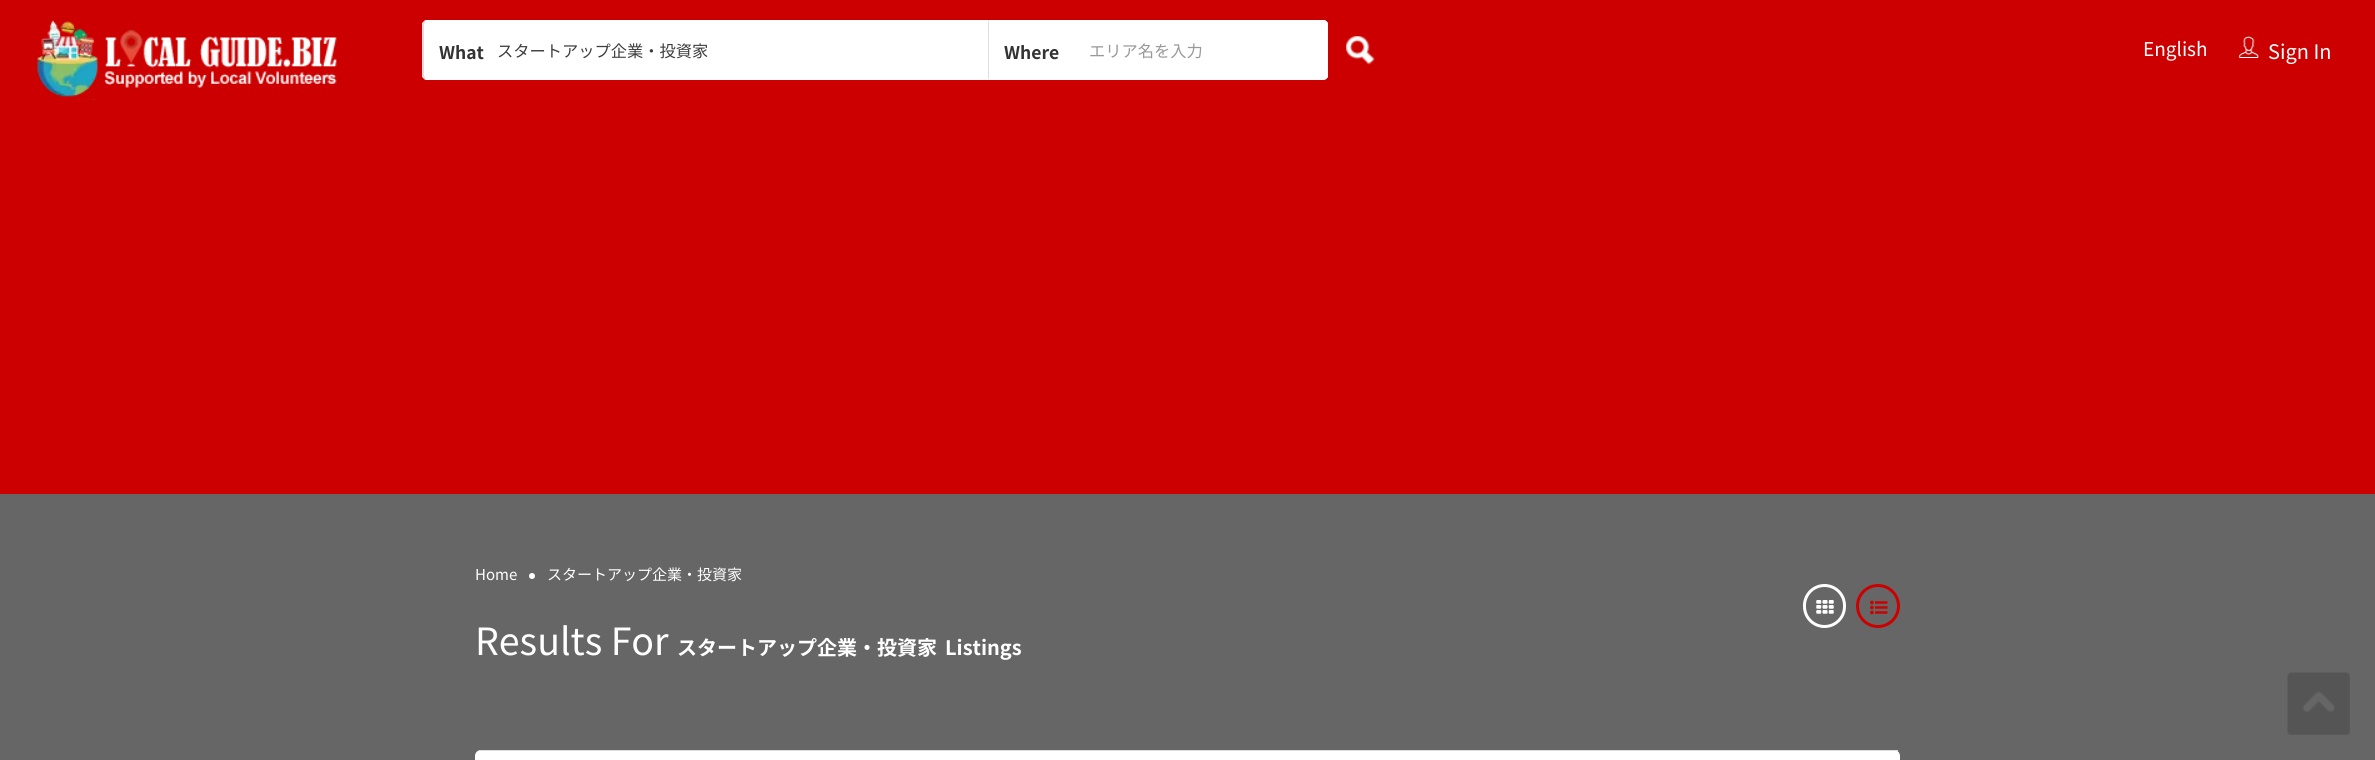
#include <cairo.h>
#include <math.h>
#include <stddef.h>

typedef struct { const char *family; double size; int italic, bold; unsigned color; } style_t;
static cairo_t *ctx;

static void ink(unsigned color) {
    cairo_set_source_rgb(ctx, (color >> 16) / 255.0, (color >> 8 & 255) / 255.0, (color & 255) / 255.0);
}

static void write(double x, double y, const char *s, const style_t *st) {
    cairo_select_font_face(ctx, st->family, st->italic ? CAIRO_FONT_SLANT_ITALIC : CAIRO_FONT_SLANT_NORMAL,
        st->bold ? CAIRO_FONT_WEIGHT_BOLD : CAIRO_FONT_WEIGHT_NORMAL);
    cairo_set_font_size(ctx, st->size);
    ink(st->color);
    cairo_move_to(ctx, x, y);
    cairo_show_text(ctx, s);
}

static void block(double x, double y, double w, double h, unsigned color) {
    ink(color);
    cairo_rectangle(ctx, x, y, w, h);
    cairo_fill(ctx);
}

static void round_path(double x, double y, double w, double h, double r) {
    cairo_new_sub_path(ctx);
    cairo_arc(ctx, x + w - r, y + h - r, r, 0, M_PI / 2);
    cairo_arc(ctx, x + r, y + h - r, r, M_PI / 2, M_PI);
    cairo_arc(ctx, x + r, y + r, r, M_PI, 1.5 * M_PI);
    cairo_arc(ctx, x + w - r, y + r, r, 1.5 * M_PI, 2 * M_PI);
    cairo_close_path(ctx);
}

static void paste(const char *path, double x, double y, double w, double h) {
    cairo_surface_t *image = cairo_image_surface_create_from_png(path);
    cairo_save(ctx);
    cairo_set_source_surface(ctx, image, x, y);
    cairo_rectangle(ctx, x, y, w, h);
    cairo_fill(ctx);
    cairo_restore(ctx);
    cairo_surface_destroy(image);
}

static const style_t s1 = {"Noto Sans CJK JP", 17.5, 0, 1, 0x333333};
static const style_t s2 = {"Noto Sans CJK JP", 16.25, 0, 0, 0x3e3e3e};
static const style_t s3 = {"Noto Sans CJK JP", 16.25, 0, 0, 0x999999};
static const style_t s4 = {"Noto Sans CJK JP", 19, 0, 0, 0xffffff};
static const style_t s5 = {"Noto Sans CJK JP", 20, 0, 0, 0xffffff};
static const style_t s6 = {"Noto Sans CJK JP", 15, 0, 0, 0xffffff};
static const style_t s7 = {"Noto Sans CJK JP", 37.5, 0, 0, 0xffffff};
static const style_t s8 = {"Noto Sans CJK JP", 20, 0, 1, 0xffffff};

int main(void) {
    cairo_surface_t *surface = cairo_image_surface_create(CAIRO_FORMAT_RGB24, 2375, 760);
    ctx = cairo_create(surface);
    cairo_font_options_t *options = cairo_font_options_create();
    cairo_font_options_set_hint_metrics(options, CAIRO_HINT_METRICS_OFF);
    cairo_font_options_set_hint_style(options, CAIRO_HINT_STYLE_NONE);
    cairo_set_font_options(ctx, options);
    cairo_set_miter_limit(ctx, 4);
    ink(0x666666);
    cairo_paint(ctx);
    block(0, 0, 2375, 494, 0xcc0000);
    paste("pic1.png", 37, 20, 300, 80);
    ink(0xffffff);
    cairo_new_path(ctx);
    cairo_move_to(ctx, 428, 20);
    cairo_line_to(ctx, 988, 20);
    cairo_line_to(ctx, 988, 80);
    cairo_line_to(ctx, 428, 80);
    cairo_curve_to(ctx, 425, 80, 423, 78, 423, 75);
    cairo_line_to(ctx, 423, 25);
    cairo_curve_to(ctx, 423, 22, 425, 20, 428, 20);
    cairo_close_path(ctx);
    cairo_fill(ctx);
    cairo_new_path(ctx);
    cairo_move_to(ctx, 428, 20);
    cairo_curve_to(ctx, 426, 20, 425, 20, 424, 21);
    cairo_line_to(ctx, 425, 22);
    cairo_curve_to(ctx, 425, 22, 426, 21, 428, 21);
    cairo_line_to(ctx, 986, 21);
    cairo_line_to(ctx, 986, 22);
    cairo_line_to(ctx, 988, 20);
    cairo_close_path(ctx);
    cairo_fill(ctx);
    cairo_new_path(ctx);
    cairo_move_to(ctx, 988, 80);
    cairo_line_to(ctx, 986, 78);
    cairo_line_to(ctx, 986, 79);
    cairo_line_to(ctx, 428, 79);
    cairo_curve_to(ctx, 426, 79, 425, 78, 425, 78);
    cairo_line_to(ctx, 424, 79);
    cairo_curve_to(ctx, 425, 80, 426, 80, 428, 80);
    cairo_close_path(ctx);
    cairo_fill(ctx);
    ink(0xdedede);
    cairo_new_path(ctx);
    cairo_move_to(ctx, 422, 23);
    cairo_line_to(ctx, 424, 21);
    cairo_line_to(ctx, 425, 22);
    cairo_line_to(ctx, 424, 25);
    cairo_line_to(ctx, 424, 75);
    cairo_line_to(ctx, 425, 78);
    cairo_line_to(ctx, 424, 79);
    cairo_line_to(ctx, 422, 77);
    cairo_close_path(ctx);
    cairo_fill(ctx);
    write(439, 59, "What", &s1);
    write(497, 57, "スタートアップ企業・投資家", &s2);
    ink(0xffffff);
    cairo_new_path(ctx);
    cairo_move_to(ctx, 988, 20);
    cairo_line_to(ctx, 1323, 20);
    cairo_curve_to(ctx, 1326, 20, 1328, 22, 1328, 25);
    cairo_line_to(ctx, 1328, 75);
    cairo_curve_to(ctx, 1328, 78, 1326, 80, 1323, 80);
    cairo_line_to(ctx, 988, 80);
    cairo_close_path(ctx);
    cairo_fill(ctx);
    cairo_new_path(ctx);
    cairo_move_to(ctx, 988, 20);
    cairo_line_to(ctx, 989, 22);
    cairo_line_to(ctx, 989, 21);
    cairo_line_to(ctx, 1322, 21);
    cairo_curve_to(ctx, 1324, 21, 1325, 22, 1325, 22);
    cairo_line_to(ctx, 1326, 21);
    cairo_curve_to(ctx, 1325, 20, 1324, 20, 1322, 20);
    cairo_close_path(ctx);
    cairo_fill(ctx);
    cairo_new_path(ctx);
    cairo_move_to(ctx, 1328, 77);
    cairo_line_to(ctx, 1326, 79);
    cairo_line_to(ctx, 1325, 78);
    cairo_line_to(ctx, 1326, 75);
    cairo_line_to(ctx, 1326, 25);
    cairo_line_to(ctx, 1325, 22);
    cairo_line_to(ctx, 1326, 21);
    cairo_line_to(ctx, 1328, 23);
    cairo_close_path(ctx);
    cairo_fill(ctx);
    cairo_new_path(ctx);
    cairo_move_to(ctx, 988, 80);
    cairo_line_to(ctx, 1323, 80);
    cairo_line_to(ctx, 1326, 79);
    cairo_line_to(ctx, 1325, 78);
    cairo_curve_to(ctx, 1325, 78, 1324, 79, 1322, 79);
    cairo_line_to(ctx, 989, 79);
    cairo_line_to(ctx, 989, 78);
    cairo_close_path(ctx);
    cairo_fill(ctx);
    ink(0xdedede);
    cairo_new_path(ctx);
    cairo_move_to(ctx, 988, 20);
    cairo_line_to(ctx, 988, 80);
    cairo_line_to(ctx, 989, 78);
    cairo_line_to(ctx, 989, 22);
    cairo_close_path(ctx);
    cairo_fill(ctx);
    write(1004, 59, "Where", &s1);
    write(1089, 57, "エリア名を入力", &s3);
    paste("pic2.png", 1346, 36, 29, 29);
    write(2143, 56, "English", &s4);
    paste("pic3.png", 2238, 36, 21, 22);
    write(2268, 59, "Sign In", &s5);
    write(475, 580, "Home", &s6);
    cairo_new_path(ctx);
    cairo_arc(ctx, 532, 576, 3, 0, 2 * M_PI);
    cairo_fill(ctx);
    write(547, 580, "スタートアップ企業・投資家", &s6);
    round_path(1804.5, 585.5, 40, 41, 20);
    cairo_set_line_width(ctx, 3);
    cairo_stroke(ctx);
    paste("pic4.png", 1816, 600, 18, 14);
    cairo_arc(ctx, 1878, 606, 20.5, 0, 2 * M_PI);
    ink(0xcc0000);
    cairo_stroke(ctx);
    paste("pic5.png", 1870, 600, 18, 15);
    write(475, 655, "Results For", &s7);
    write(677, 655, "スタートアップ企業・投資家", &s8);
    write(945, 655, "Listings", &s8);
    round_path(475, 750, 1425, 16, 6);
    cairo_fill(ctx);
    block(479, 750, 1419, 1, 0xdedede);
    paste("pic6.png", 2287, 672, 63, 63);
    cairo_surface_write_to_png(surface, "screenshot.png");
    cairo_font_options_destroy(options);
    cairo_destroy(ctx);
    cairo_surface_destroy(surface);
    return 0;
}
